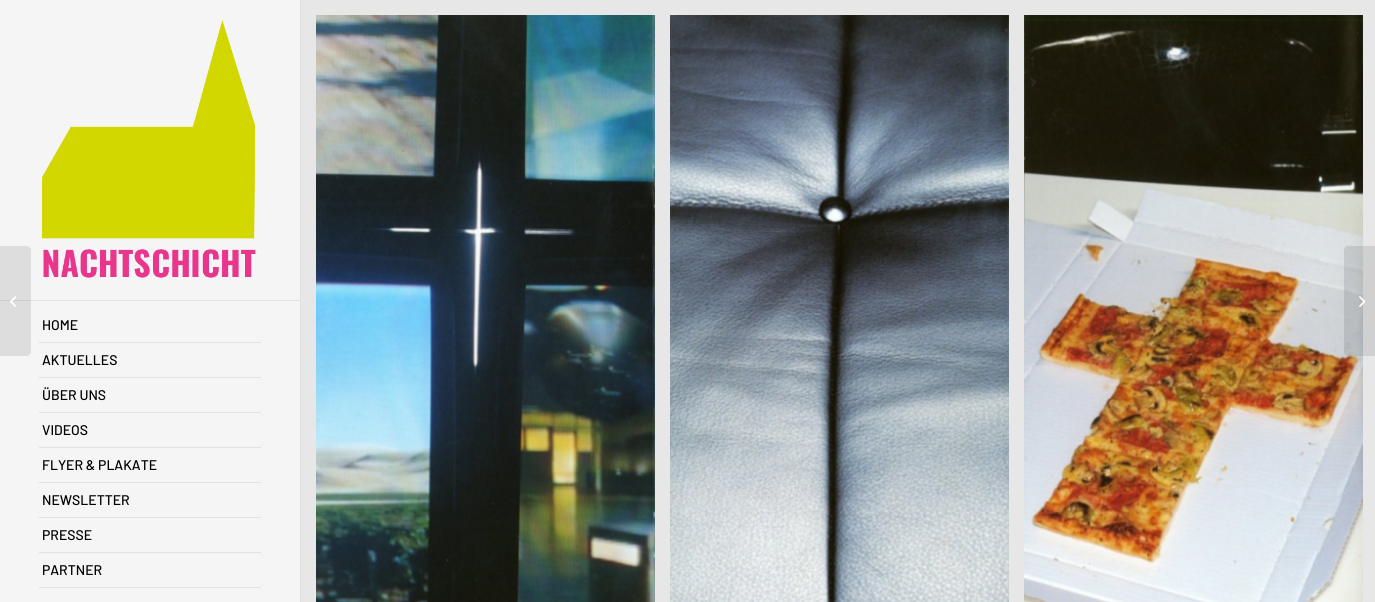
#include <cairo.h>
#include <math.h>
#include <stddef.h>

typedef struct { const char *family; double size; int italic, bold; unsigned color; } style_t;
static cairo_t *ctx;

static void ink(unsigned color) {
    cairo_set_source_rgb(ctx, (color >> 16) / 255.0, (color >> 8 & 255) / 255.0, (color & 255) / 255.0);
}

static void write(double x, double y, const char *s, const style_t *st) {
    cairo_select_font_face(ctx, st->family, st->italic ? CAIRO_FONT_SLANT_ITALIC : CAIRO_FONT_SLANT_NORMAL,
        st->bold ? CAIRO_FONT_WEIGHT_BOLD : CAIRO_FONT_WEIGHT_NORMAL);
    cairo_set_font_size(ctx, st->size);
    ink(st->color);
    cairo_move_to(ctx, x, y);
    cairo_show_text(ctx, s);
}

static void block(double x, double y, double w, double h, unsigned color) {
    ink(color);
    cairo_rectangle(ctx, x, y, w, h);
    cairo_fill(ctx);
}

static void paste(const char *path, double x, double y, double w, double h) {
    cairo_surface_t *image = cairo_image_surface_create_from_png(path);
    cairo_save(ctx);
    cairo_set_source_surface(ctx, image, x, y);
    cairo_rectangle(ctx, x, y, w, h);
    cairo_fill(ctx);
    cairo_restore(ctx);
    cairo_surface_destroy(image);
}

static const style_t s1 = {"Barlow Medium", 14, 0, 0, 0x000000};

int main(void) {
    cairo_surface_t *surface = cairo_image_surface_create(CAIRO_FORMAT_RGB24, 1375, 602);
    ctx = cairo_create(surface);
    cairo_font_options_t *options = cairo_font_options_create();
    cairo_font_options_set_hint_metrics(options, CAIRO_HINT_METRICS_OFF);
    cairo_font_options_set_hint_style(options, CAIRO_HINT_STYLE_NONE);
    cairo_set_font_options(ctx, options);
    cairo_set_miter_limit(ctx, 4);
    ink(0xf5f5f5);
    cairo_paint(ctx);
    block(0, 300, 300, 1, 0xe1e1e1);
    cairo_set_source_rgba(ctx, 0, 0, 0, 0.1);
    cairo_new_path(ctx);
    cairo_move_to(ctx, 0, 246);
    cairo_line_to(ctx, 27, 246);
    cairo_curve_to(ctx, 29, 246, 31, 248, 31, 250);
    cairo_line_to(ctx, 31, 352);
    cairo_curve_to(ctx, 31, 354, 29, 356, 27, 356);
    cairo_line_to(ctx, 0, 356);
    cairo_close_path(ctx);
    cairo_fill(ctx);
    paste("pic1.png", 10, 296, 7, 11);
    block(300, 0, 1, 602, 0xe1e1e1);
    block(301, 0, 1074, 602, 0xe7e7e7);
    paste("pic2.png", 316, 15, 339, 587);
    paste("pic3.png", 670, 15, 339, 587);
    paste("pic4.png", 1024, 15, 339, 587);
    cairo_set_source_rgba(ctx, 0, 0, 0, 0.1);
    cairo_new_path(ctx);
    cairo_move_to(ctx, 1348, 246);
    cairo_line_to(ctx, 1375, 246);
    cairo_line_to(ctx, 1375, 356);
    cairo_line_to(ctx, 1348, 356);
    cairo_curve_to(ctx, 1346, 356, 1344, 354, 1344, 352);
    cairo_line_to(ctx, 1344, 250);
    cairo_curve_to(ctx, 1344, 248, 1346, 246, 1348, 246);
    cairo_close_path(ctx);
    cairo_fill(ctx);
    paste("pic5.png", 1359, 296, 7, 11);
    paste("pic6.png", 42, 20, 214, 258);
    block(39, 342, 222, 1, 0xe1e1e1);
    write(42, 330, "HOME", &s1);
    block(39, 377, 222, 1, 0xe1e1e1);
    write(42, 365, "AKTUELLES", &s1);
    block(39, 412, 222, 1, 0xe1e1e1);
    write(42, 400, "ÜBER UNS", &s1);
    block(39, 447, 222, 1, 0xe1e1e1);
    write(42, 435, "VIDEOS", &s1);
    block(39, 482, 222, 1, 0xe1e1e1);
    write(42, 470, "FLYER & PLAKATE", &s1);
    block(39, 517, 222, 1, 0xe1e1e1);
    write(42, 505, "NEWSLETTER", &s1);
    block(39, 552, 222, 1, 0xe1e1e1);
    write(42, 540, "PRESSE", &s1);
    block(39, 587, 222, 1, 0xe1e1e1);
    write(42, 575, "PARTNER", &s1);
    cairo_surface_write_to_png(surface, "screenshot.png");
    cairo_font_options_destroy(options);
    cairo_destroy(ctx);
    cairo_surface_destroy(surface);
    return 0;
}
